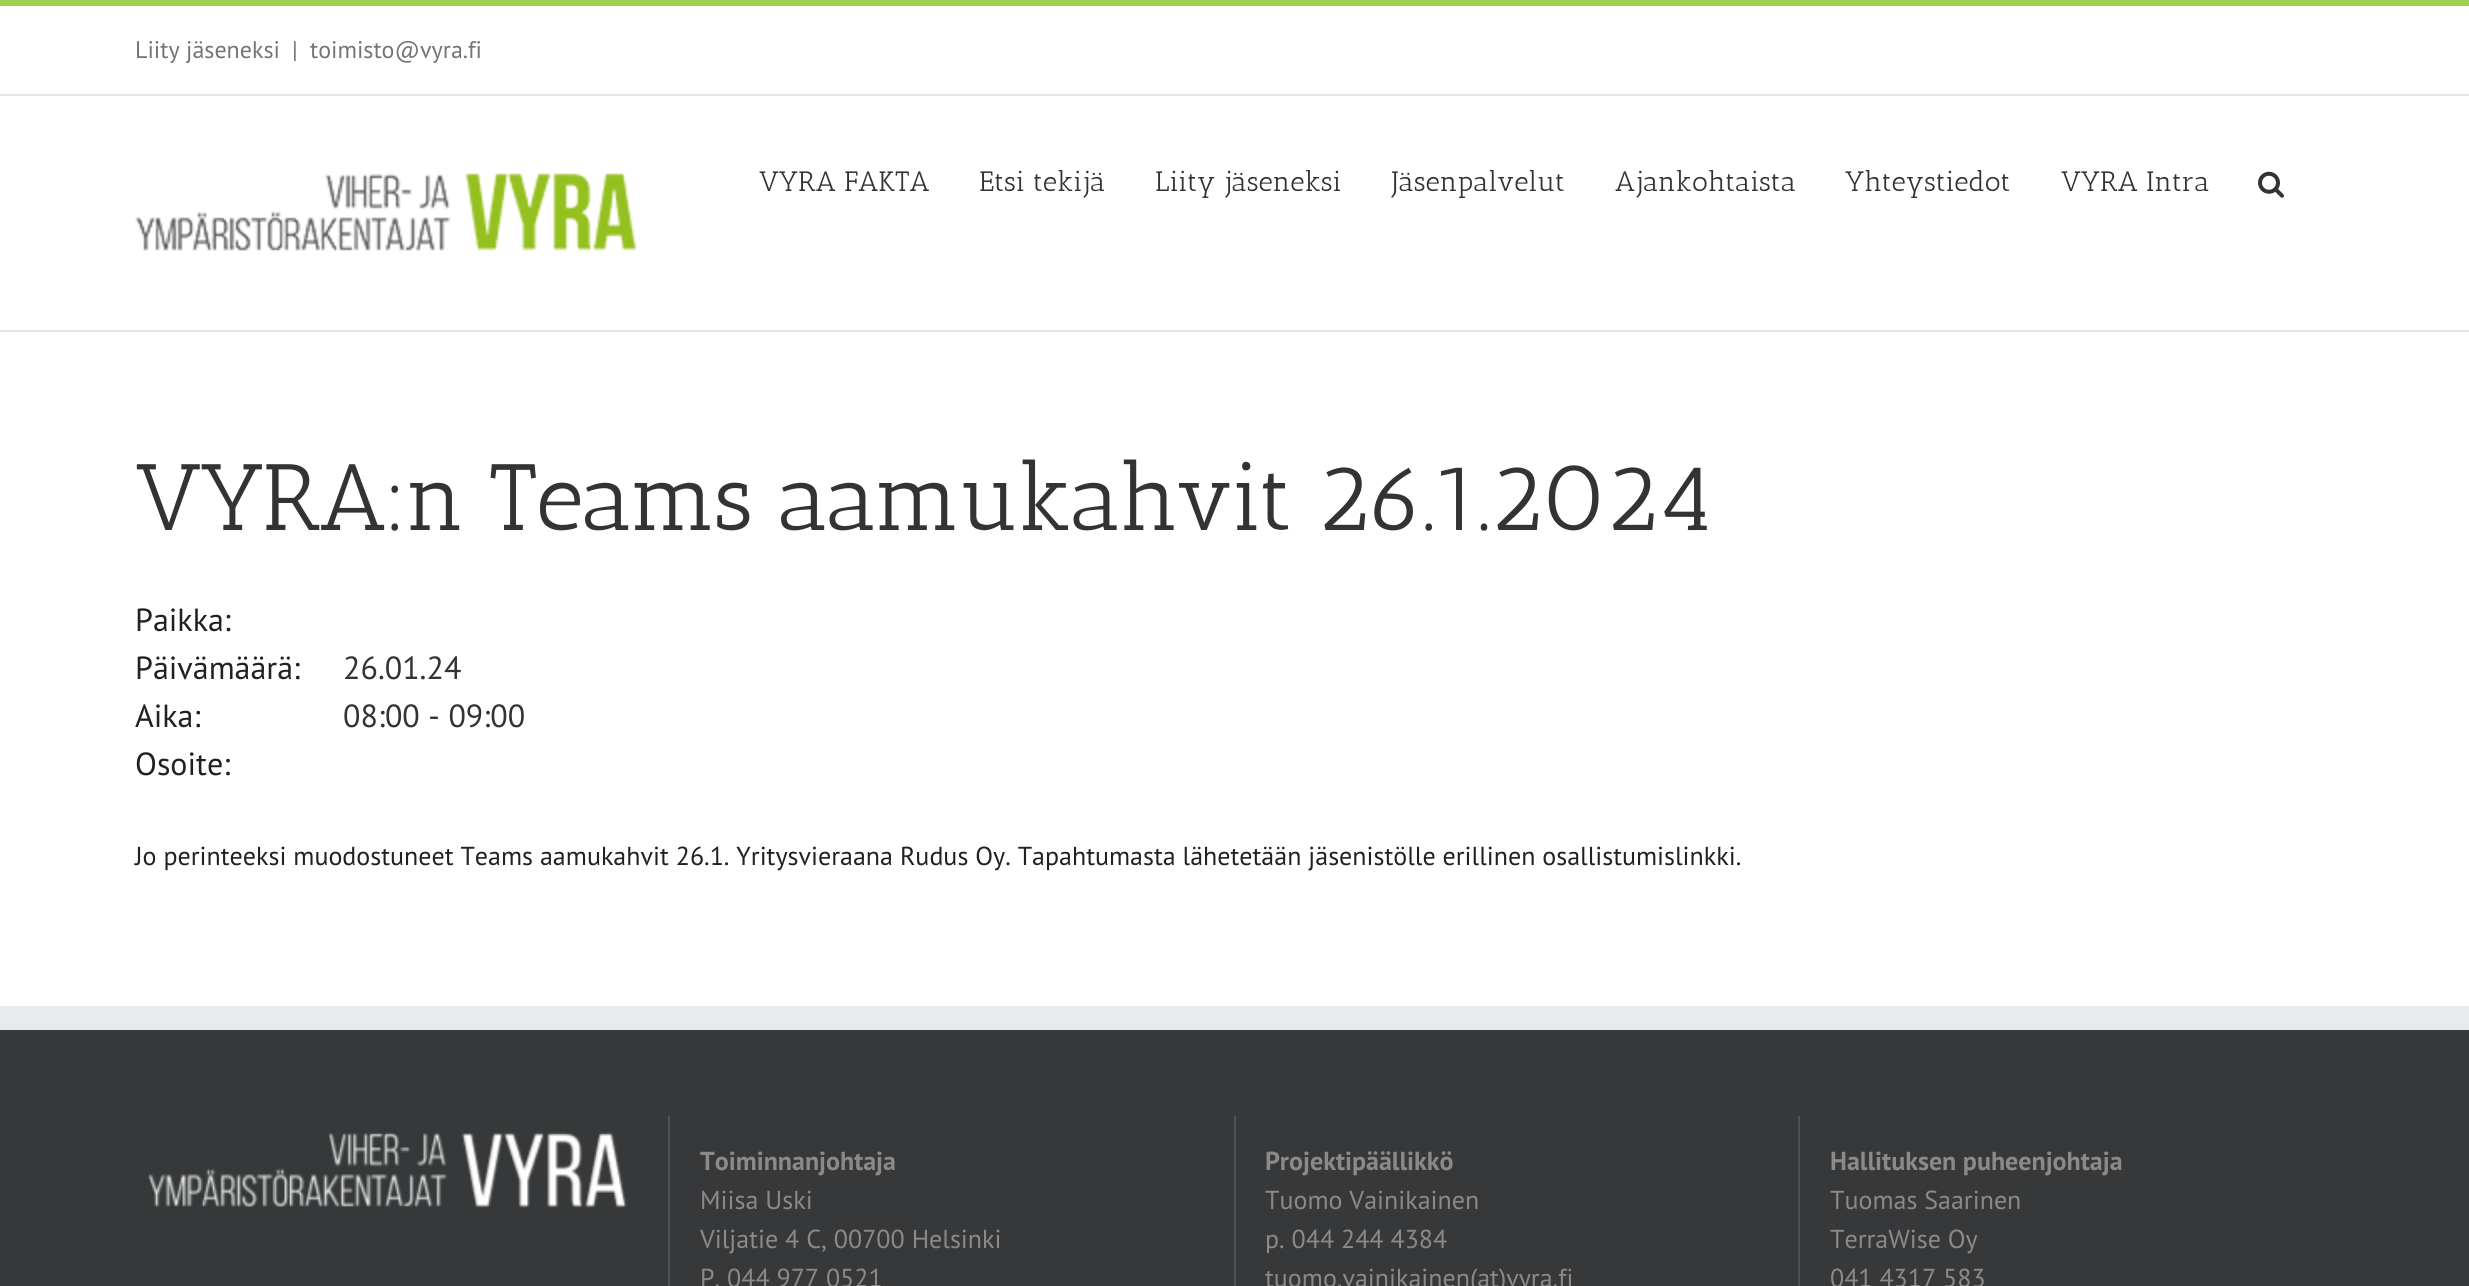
#include <cairo.h>
#include <math.h>
#include <stddef.h>

typedef struct { const char *family; double size; int italic, bold; unsigned color; } style_t;
static cairo_t *ctx;

static void ink(unsigned color) {
    cairo_set_source_rgb(ctx, (color >> 16) / 255.0, (color >> 8 & 255) / 255.0, (color & 255) / 255.0);
}

static void write(double x, double y, const char *s, const style_t *st) {
    cairo_select_font_face(ctx, st->family, st->italic ? CAIRO_FONT_SLANT_ITALIC : CAIRO_FONT_SLANT_NORMAL,
        st->bold ? CAIRO_FONT_WEIGHT_BOLD : CAIRO_FONT_WEIGHT_NORMAL);
    cairo_set_font_size(ctx, st->size);
    ink(st->color);
    cairo_move_to(ctx, x, y);
    cairo_show_text(ctx, s);
}

static void write_spaced(double x, double y, const char *s, double letter, double word) {
    cairo_move_to(ctx, x, y);
    while (*s) {
        char ch[5] = {0};
        int n = 0;
        do ch[n++] = *s++; while ((*s & 0xC0) == 0x80);
        cairo_show_text(ctx, ch);
        cairo_rel_move_to(ctx, letter + word * (*ch == ' '), 0);
    }
}

static void block(double x, double y, double w, double h, unsigned color) {
    ink(color);
    cairo_rectangle(ctx, x, y, w, h);
    cairo_fill(ctx);
}

static void paste(const char *path, double x, double y, double w, double h) {
    cairo_surface_t *image = cairo_image_surface_create_from_png(path);
    cairo_save(ctx);
    cairo_set_source_surface(ctx, image, x, y);
    cairo_rectangle(ctx, x, y, w, h);
    cairo_fill(ctx);
    cairo_restore(ctx);
    cairo_surface_destroy(image);
}

static const style_t s1 = {"PT Sans", 24, 0, 0, 0x747474};
static const style_t s2 = {"Antic Slab", 28, 0, 0, 0x333333};
static const style_t s3 = {"PT Sans", 32, 0, 0, 0x212121};
static const style_t s4 = {"PT Sans", 32, 0, 0, 0x333333};
static const style_t s5 = {"PT Sans", 26, 0, 0, 0x212121};
static const style_t s6 = {"PT Sans", 26, 0, 1, 0x8c8989};
static const style_t s7 = {"PT Sans", 26, 0, 0, 0x8c8989};

int main(void) {
    cairo_surface_t *surface = cairo_image_surface_create(CAIRO_FORMAT_RGB24, 2469, 1286);
    ctx = cairo_create(surface);
    cairo_font_options_t *options = cairo_font_options_create();
    cairo_font_options_set_hint_metrics(options, CAIRO_HINT_METRICS_OFF);
    cairo_font_options_set_hint_style(options, CAIRO_HINT_STYLE_NONE);
    cairo_set_font_options(ctx, options);
    cairo_set_miter_limit(ctx, 4);
    ink(0xffffff);
    cairo_paint(ctx);
    block(0, 0, 2469, 6, 0xa0ce4e);
    block(0, 94, 2469, 2, 0xe5e5e5);
    write(135, 58, "Liity jäseneksi", &s1);
    write(292, 58, "|", &s1);
    write(310, 58, "toimisto@vyra.fi", &s1);
    block(0, 330, 2469, 2, 0xe5e5e5);
    paste("pic1.png", 135, 173, 501, 78);
    write(759, 191, "VYRA FAKTA", &s2);
    write(979, 191, "Etsi tekijä", &s2);
    write(1155, 191, "Liity jäseneksi", &s2);
    write(1392, 191, "Jäsenpalvelut", &s2);
    write(1615, 191, "Ajankohtaista", &s2);
    write(1845, 191, "Yhteystiedot", &s2);
    write(2061, 191, "VYRA Intra", &s2);
    paste("pic2.png", 2258, 171, 26, 27);
    cairo_set_font_size(ctx, 94);
    write_spaced(135, 530, "VYRA:n Teams aamukahvit 26.1.2024", -2, 0);
    write(135, 631, "Paikka:", &s3);
    write(135, 679, "Päivämäärä:", &s3);
    write(343, 679, "26.01.24", &s4);
    write(135, 727, "Aika:", &s3);
    write(343, 727, "08:00 - 09:00", &s4);
    write(135, 775, "Osoite:", &s3);
    write(135, 865, "Jo perinteeksi muodostuneet Teams aamukahvit 26.1. Yritysvieraana Rudus Oy. Tapahtumasta lähetetään jäsenistölle erillinen osallistumislinkki.", &s5);
    block(0, 1030, 2469, 256, 0x363839);
    block(0, 1006, 2469, 24, 0xe9eaee);
    block(668, 1116, 2, 170, 0x505152);
    paste("pic3.png", 148, 1132, 479, 76);
    block(1234, 1116, 2, 170, 0x505152);
    write(700, 1170, "Toiminnanjohtaja", &s6);
    write(700, 1209, "Miisa Uski", &s7);
    write(700, 1248, "Viljatie 4 C, 00700 Helsinki", &s7);
    write(700, 1287, "P. 044 977 0521", &s7);
    block(1798, 1116, 2, 170, 0x505152);
    write(1265, 1170, "Projektipäällikkö", &s6);
    write(1265, 1209, "Tuomo Vainikainen", &s7);
    write(1265, 1248, "p. 044 244 4384", &s7);
    write(1265, 1287, "tuomo.vainikainen(at)vyra.fi", &s7);
    write(1830, 1170, "Hallituksen puheenjohtaja", &s6);
    write(1830, 1209, "Tuomas Saarinen", &s7);
    write(1830, 1248, "TerraWise Oy", &s7);
    write(1830, 1287, "041 4317 583", &s7);
    cairo_surface_write_to_png(surface, "screenshot.png");
    cairo_font_options_destroy(options);
    cairo_destroy(ctx);
    cairo_surface_destroy(surface);
    return 0;
}
